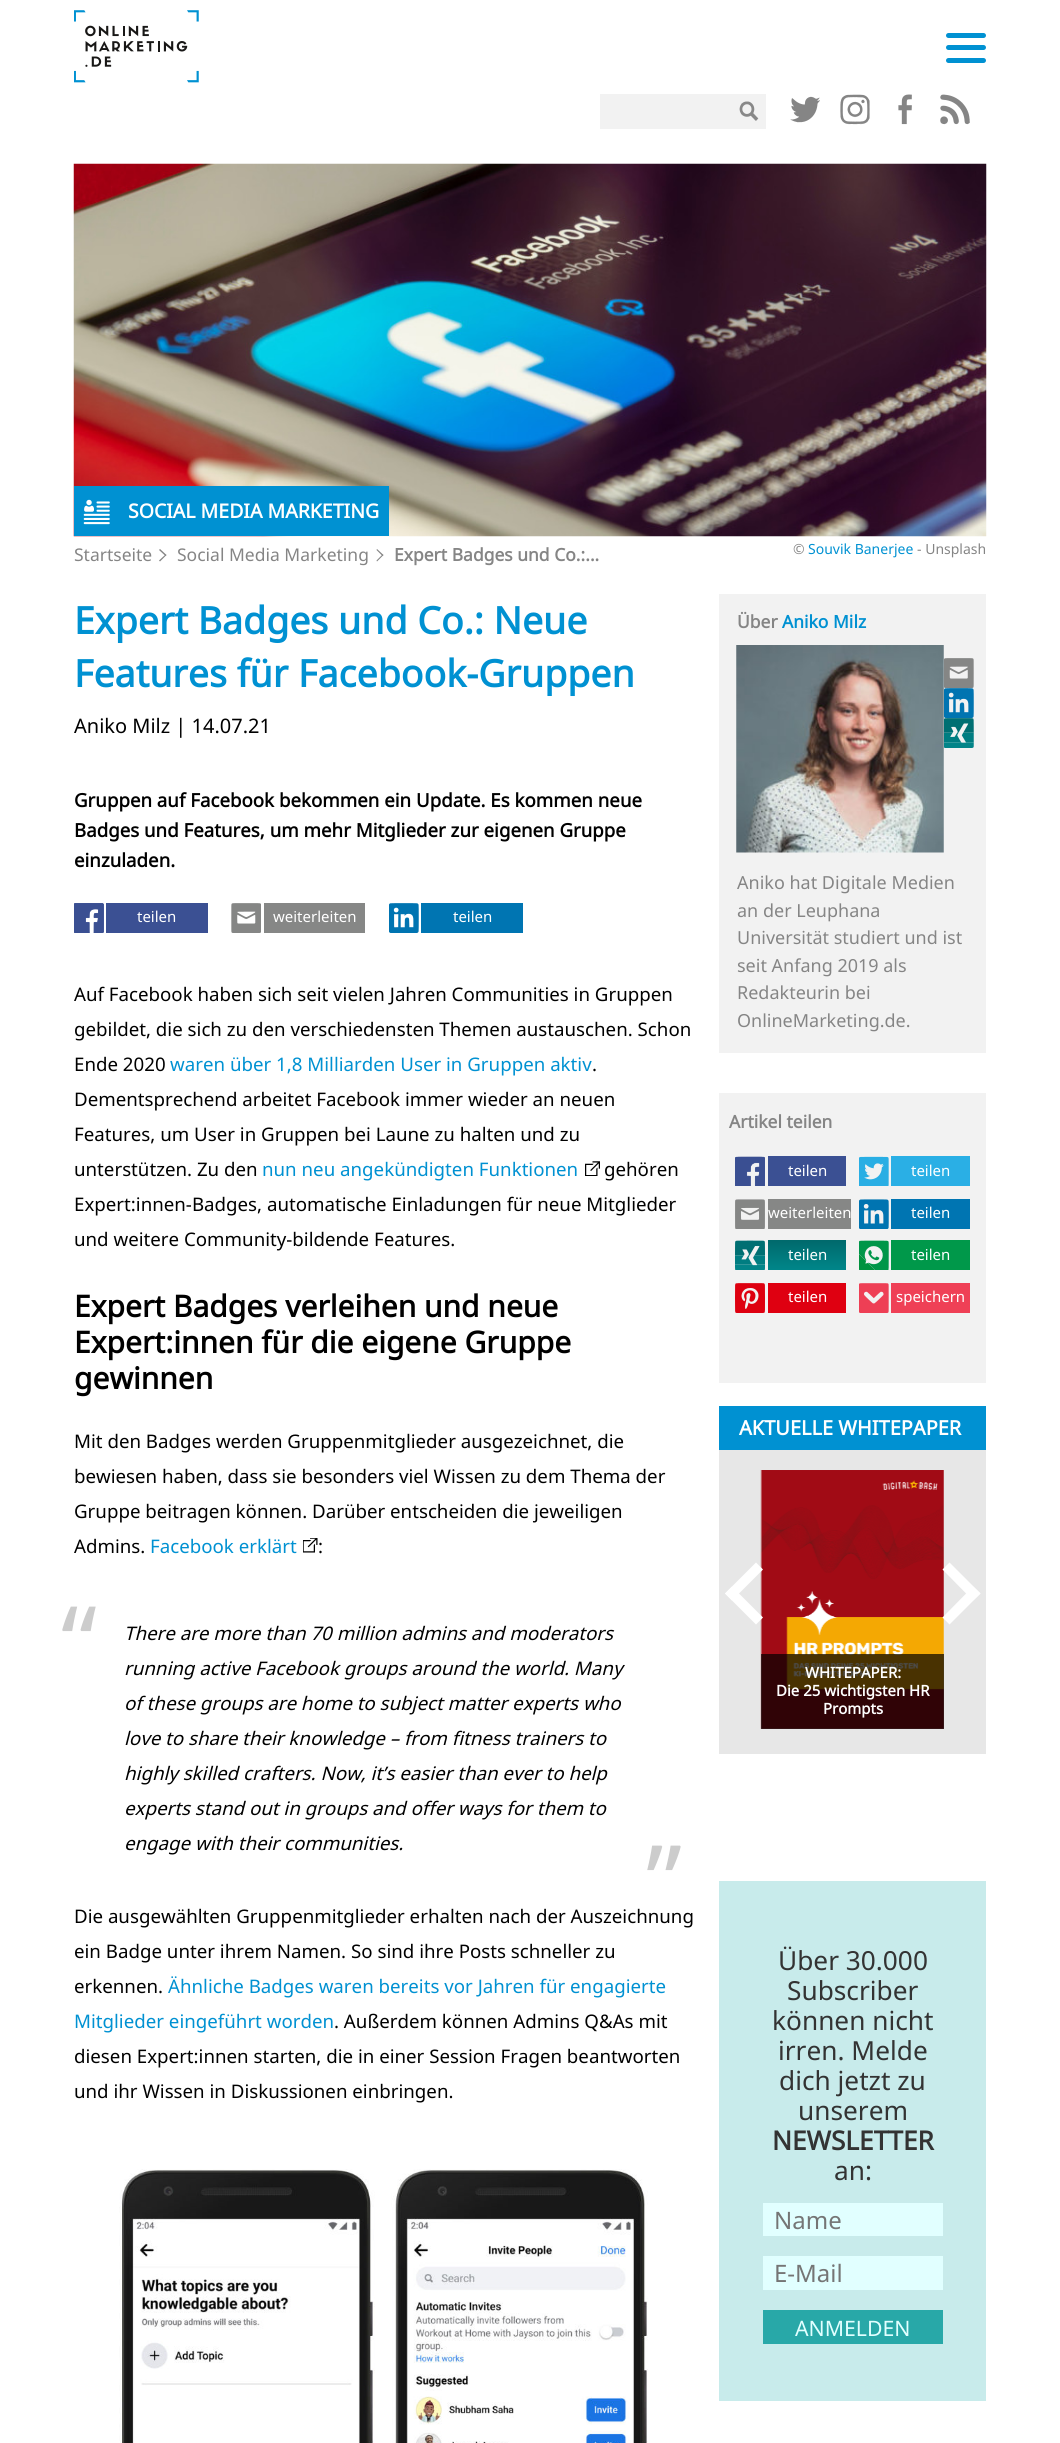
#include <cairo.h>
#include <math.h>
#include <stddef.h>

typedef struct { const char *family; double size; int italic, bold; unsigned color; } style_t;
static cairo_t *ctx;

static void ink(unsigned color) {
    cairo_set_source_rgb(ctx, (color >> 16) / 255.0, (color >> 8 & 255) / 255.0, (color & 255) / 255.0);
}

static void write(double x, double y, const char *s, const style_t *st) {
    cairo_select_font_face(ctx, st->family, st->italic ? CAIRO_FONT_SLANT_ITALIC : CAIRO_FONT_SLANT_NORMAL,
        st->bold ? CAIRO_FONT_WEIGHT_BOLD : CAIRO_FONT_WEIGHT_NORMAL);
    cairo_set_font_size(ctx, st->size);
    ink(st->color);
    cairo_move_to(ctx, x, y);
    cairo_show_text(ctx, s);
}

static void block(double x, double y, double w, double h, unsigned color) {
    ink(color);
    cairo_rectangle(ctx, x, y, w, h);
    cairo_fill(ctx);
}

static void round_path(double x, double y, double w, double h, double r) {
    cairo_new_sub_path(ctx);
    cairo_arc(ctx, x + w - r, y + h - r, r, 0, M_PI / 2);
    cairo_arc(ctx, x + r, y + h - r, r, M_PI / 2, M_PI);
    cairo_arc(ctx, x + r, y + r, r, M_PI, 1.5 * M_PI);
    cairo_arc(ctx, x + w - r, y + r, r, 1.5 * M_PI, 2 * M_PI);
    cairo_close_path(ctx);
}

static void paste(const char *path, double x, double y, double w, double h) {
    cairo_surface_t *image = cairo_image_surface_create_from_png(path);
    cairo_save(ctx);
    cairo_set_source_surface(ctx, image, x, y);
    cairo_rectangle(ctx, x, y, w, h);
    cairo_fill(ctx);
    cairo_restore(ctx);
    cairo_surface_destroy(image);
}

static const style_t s1 = {"Noto Sans", 19.5, 0, 1, 0xffffff};
static const style_t s2 = {"Noto Sans", 17.5, 0, 0, 0x858585};
static const style_t s3 = {"Noto Sans", 17.5, 0, 1, 0x858585};
static const style_t s4 = {"Noto Sans", 14, 0, 0, 0x858585};
static const style_t s5 = {"Noto Sans", 14, 0, 0, 0x0091d2};
static const style_t s6 = {"Noto Sans", 37.5, 0, 1, 0x0091d2};
static const style_t s7 = {"Noto Sans", 20, 0, 0, 0x000000};
static const style_t s8 = {"Noto Sans", 18.7, 0, 1, 0x000000};
static const style_t s9 = {"Noto Sans", 15, 0, 0, 0xffffff};
static const style_t s10 = {"Noto Sans", 18.7, 0, 0, 0x000000};
static const style_t s11 = {"Noto Sans", 18.7, 0, 0, 0x0091d2};
static const style_t s12 = {"Noto Sans", 30, 0, 1, 0x000000};
static const style_t s13 = {"Noto Sans", 100, 0, 0, 0xcccccc};
static const style_t s14 = {"Noto Sans", 18.7, 1, 0, 0x000000};
static const style_t s15 = {"Noto Sans", 17.5, 0, 1, 0x0091d2};
static const style_t s16 = {"Noto Sans", 18, 0, 0, 0x858585};
static const style_t s17 = {"Noto Sans", 20, 0, 1, 0xffffff};
static const style_t s18 = {"Noto Sans", 15, 0, 1, 0xffffff};
static const style_t s19 = {"Noto Sans", 26.25, 0, 0, 0x333333};
static const style_t s20 = {"Noto Sans", 26.25, 0, 1, 0x333333};
static const style_t s21 = {"Noto Sans", 24, 0, 0, 0x757575};
static const style_t s22 = {"Noto Sans", 21.25, 0, 0, 0xe1ffff};

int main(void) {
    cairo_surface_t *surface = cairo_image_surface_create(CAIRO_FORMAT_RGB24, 1060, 2443);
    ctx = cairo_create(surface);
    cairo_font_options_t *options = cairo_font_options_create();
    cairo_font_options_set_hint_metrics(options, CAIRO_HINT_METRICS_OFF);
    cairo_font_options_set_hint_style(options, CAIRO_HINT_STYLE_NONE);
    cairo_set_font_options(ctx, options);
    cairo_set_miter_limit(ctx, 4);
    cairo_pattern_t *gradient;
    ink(0xffffff);
    cairo_paint(ctx);
    paste("pic1.png", 74, 10, 125, 73);
    ink(0x0091d2);
    round_path(946, 33, 40, 5, 2.5);
    cairo_fill(ctx);
    round_path(946, 45, 40, 5, 2.5);
    cairo_fill(ctx);
    round_path(946, 58, 40, 5, 2.5);
    cairo_fill(ctx);
    block(600, 94, 166, 35, 0xf2f2f2);
    paste("pic4.png", 741, 103, 16, 18);
    paste("pic5.png", 746, 113, 13, 6);
    paste("pic2.png", 739, 101, 19, 19);
    paste("pic3.png", 739, 101, 20, 20);
    paste("pic6.png", 790, 96, 28, 27);
    paste("pic7.png", 790, 96, 30, 27);
    paste("pic11.png", 843, 97, 27, 28);
    paste("pic10.png", 842, 97, 28, 28);
    paste("pic9.png", 840, 97, 30, 28);
    paste("pic8.png", 840, 94, 30, 30);
    paste("pic12.png", 898, 94, 14, 31);
    paste("pic16.png", 940, 102, 30, 22);
    paste("pic13.png", 940, 94, 30, 31);
    paste("pic14.png", 940, 94, 30, 31);
    paste("pic15.png", 940, 94, 30, 30);
    paste("pic17.png", 73, 163, 914, 374);
    block(74, 486, 315, 50, 0x0091d2);
    paste("pic18.png", 83, 499, 27, 26);
    write(128, 518, "SOCIAL MEDIA MARKETING", &s1);
    write(74, 561, "Startseite", &s2);
    cairo_new_path(ctx);
    cairo_move_to(ctx, 160, 549);
    cairo_line_to(ctx, 166.5, 555);
    cairo_line_to(ctx, 165.5, 556);
    cairo_line_to(ctx, 159, 550);
    cairo_close_path(ctx);
    cairo_fill(ctx);
    cairo_new_path(ctx);
    cairo_move_to(ctx, 165.5, 554.5);
    cairo_line_to(ctx, 166.5, 555);
    cairo_line_to(ctx, 160, 561.5);
    cairo_line_to(ctx, 159, 560.5);
    cairo_close_path(ctx);
    cairo_fill(ctx);
    write(177, 561, "Social Media Marketing", &s2);
    cairo_new_path(ctx);
    cairo_move_to(ctx, 377, 549);
    cairo_line_to(ctx, 383.5, 555);
    cairo_line_to(ctx, 382.5, 556);
    cairo_line_to(ctx, 376.5, 550);
    cairo_close_path(ctx);
    cairo_fill(ctx);
    cairo_new_path(ctx);
    cairo_move_to(ctx, 382.5, 554.5);
    cairo_line_to(ctx, 383.5, 555);
    cairo_line_to(ctx, 377, 561.5);
    cairo_line_to(ctx, 376.5, 560.5);
    cairo_close_path(ctx);
    cairo_fill(ctx);
    write(394, 561, "Expert Badges und Co.:...", &s3);
    write(793, 554, "©", &s4);
    write(808, 554, "Souvik Banerjee", &s5);
    write(917, 554, "- Unsplash", &s4);
    write(74, 634, "Expert Badges und Co.: Neue", &s6);
    write(74, 687, "Features für Facebook-Gruppen", &s6);
    write(74, 733, "Aniko Milz | 14.07.21", &s7);
    write(74, 807, "Gruppen auf Facebook bekommen ein Update. Es kommen neue", &s8);
    write(74, 837, "Badges und Features, um mehr Mitglieder zur eigenen Gruppe", &s8);
    write(74, 867, "einzuladen.", &s8);
    paste("pic19.png", 74, 903, 30, 30);
    paste("pic20.png", 74, 903, 30, 30);
    paste("pic21.png", 74, 903, 30, 30);
    paste("pic22.png", 74, 903, 30, 30);
    paste("pic23.png", 74, 903, 30, 30);
    paste("pic24.png", 74, 903, 30, 30);
    paste("pic25.png", 74, 903, 30, 30);
    block(106, 903, 102, 30, 0x3b5093);
    write(137, 922, "teilen", &s9);
    paste("pic26.png", 231, 903, 30, 30);
    block(264, 903, 101, 30, 0x868786);
    write(273, 922, "weiterleiten", &s9);
    paste("pic27.png", 389, 903, 16, 19);
    paste("pic29.png", 397, 915, 17, 13);
    paste("pic28.png", 389, 903, 30, 30);
    block(421, 903, 102, 30, 0x0075b2);
    write(453, 922, "teilen", &s9);
    write(74, 1001, "Auf Facebook haben sich seit vielen Jahren Communities in Gruppen", &s10);
    write(74, 1036, "gebildet, die sich zu den verschiedensten Themen austauschen. Schon", &s10);
    write(74, 1071, "Ende 2020", &s10);
    write(170, 1071, "waren über 1,8 Milliarden User in Gruppen aktiv", &s11);
    write(592, 1071, ".", &s10);
    write(74, 1106, "Dementsprechend arbeitet Facebook immer wieder an neuen", &s10);
    write(74, 1141, "Features, um User in Gruppen bei Laune zu halten und zu", &s10);
    write(74, 1176, "unterstützen. Zu den", &s10);
    write(262, 1176, "nun neu angekündigten Funktionen", &s11);
    paste("pic30.png", 585, 1161, 15, 15);
    write(604, 1176, "gehören", &s10);
    write(74, 1211, "Expert:innen-Badges, automatische Einladungen für neue Mitglieder", &s10);
    write(74, 1246, "und weitere Community-bildende Features.", &s10);
    write(74, 1317, "Expert Badges verleihen und neue", &s12);
    write(74, 1353, "Expert:innen für die eigene Gruppe", &s12);
    write(74, 1389, "gewinnen", &s12);
    write(74, 1448, "Mit den Badges werden Gruppenmitglieder ausgezeichnet, die", &s10);
    write(74, 1483, "bewiesen haben, dass sie besonders viel Wissen zu dem Thema der", &s10);
    write(74, 1518, "Gruppe beitragen können. Darüber entscheiden die jeweiligen", &s10);
    write(74, 1553, "Admins.", &s10);
    write(150, 1553, "Facebook erklärt", &s11);
    paste("pic31.png", 303, 1538, 15, 15);
    write(318, 1553, ":", &s10);
    write(61, 1678, "“", &s13);
    write(124, 1640, "There are more than 70 million admins and moderators", &s14);
    write(124, 1675, "running active Facebook groups around the world. Many", &s14);
    write(124, 1710, "of these groups are home to subject matter experts who", &s14);
    write(124, 1745, "love to share their knowledge – from fitness trainers to", &s14);
    write(124, 1780, "highly skilled crafters. Now, it’s easier than ever to help", &s14);
    write(124, 1815, "experts stand out in groups and offer ways for them to", &s14);
    write(124, 1850, "engage with their communities.", &s14);
    write(646, 1917, "”", &s13);
    write(74, 1923, "Die ausgewählten Gruppenmitglieder erhalten nach der Auszeichnung", &s10);
    write(74, 1958, "ein Badge unter ihrem Namen. So sind ihre Posts schneller zu", &s10);
    write(74, 1993, "erkennen.", &s10);
    write(168, 1993, "Ähnliche Badges waren bereits vor Jahren für engagierte", &s11);
    write(74, 2028, "Mitglieder eingeführt worden", &s11);
    write(334, 2028, ". Außerdem können Admins Q&As mit", &s10);
    write(74, 2063, "diesen Expert:innen starten, die in einer Session Fragen beantworten", &s10);
    write(74, 2098, "und ihr Wissen in Diskussionen einbringen.", &s10);
    paste("pic32.png", 119, 2169, 529, 274);
    block(719, 594, 267, 459, 0xf2f2f2);
    write(737, 628, "Über", &s3);
    write(782, 628, "Aniko Milz", &s15);
    paste("pic33.png", 736, 645, 208, 208);
    paste("pic34.png", 944, 658, 30, 30);
    paste("pic36.png", 952, 700, 17, 13);
    paste("pic35.png", 944, 688, 30, 30);
    paste("pic37.png", 944, 718, 30, 30);
    paste("pic39.png", 944, 732, 30, 11);
    paste("pic38.png", 944, 718, 30, 15);
    write(737, 889, "Aniko hat Digitale Medien", &s16);
    write(737, 917, "an der Leuphana", &s16);
    write(737, 944, "Universität studiert und ist", &s16);
    write(737, 972, "seit Anfang 2019 als", &s16);
    write(737, 999, "Redakteurin bei", &s16);
    write(737, 1027, "OnlineMarketing.de.", &s16);
    block(719, 1093, 267, 290, 0xf2f2f2);
    write(729, 1128, "Artikel teilen", &s3);
    paste("pic46.png", 735, 1157, 30, 29);
    paste("pic40.png", 735, 1156, 30, 30);
    paste("pic41.png", 735, 1156, 30, 30);
    paste("pic42.png", 735, 1156, 30, 30);
    paste("pic43.png", 735, 1156, 30, 30);
    paste("pic44.png", 735, 1156, 30, 30);
    paste("pic45.png", 735, 1156, 30, 30);
    block(768, 1156, 78, 30, 0x3b5093);
    write(788, 1176, "teilen", &s9);
    paste("pic49.png", 865, 1165, 2, 13);
    paste("pic48.png", 866, 1164, 17, 16);
    paste("pic47.png", 859, 1156, 30, 30);
    block(891, 1156, 79, 30, 0x2aafe5);
    write(911, 1176, "teilen", &s9);
    paste("pic50.png", 735, 1199, 30, 30);
    block(768, 1199, 83, 30, 0x868786);
    write(768, 1218, "weiterleiten", &s9);
    paste("pic52.png", 866, 1211, 18, 13);
    paste("pic51.png", 859, 1199, 30, 30);
    block(891, 1199, 79, 30, 0x0075b2);
    write(911, 1218, "teilen", &s9);
    paste("pic54.png", 735, 1241, 30, 29);
    paste("pic55.png", 735, 1255, 30, 10);
    paste("pic53.png", 735, 1240, 30, 16);
    gradient = cairo_pattern_create_linear(807, 1270, 807, 1240);
    cairo_pattern_add_color_stop_rgba(gradient, 0, 0, 0.525, 0.541, 1);
    cairo_pattern_add_color_stop_rgba(gradient, 1, 0, 0.412, 0.42, 1);
    cairo_set_source(ctx, gradient);
    cairo_pattern_destroy(gradient);
    cairo_rectangle(ctx, 768, 1240, 78, 30);
    cairo_fill(ctx);
    write(788, 1260, "teilen", &s9);
    paste("pic57.png", 866, 1246, 17, 17);
    paste("pic56.png", 859, 1240, 30, 30);
    paste("pic58.png", 859, 1254, 16, 16);
    block(891, 1240, 79, 30, 0x00984a);
    write(911, 1260, "teilen", &s9);
    paste("pic60.png", 746, 1290, 11, 7);
    paste("pic59.png", 735, 1283, 30, 30);
    block(768, 1283, 78, 30, 0xdf0011);
    write(788, 1302, "teilen", &s9);
    paste("pic63.png", 867, 1293, 16, 11);
    paste("pic62.png", 865, 1292, 17, 11);
    paste("pic61.png", 859, 1283, 30, 30);
    block(891, 1283, 79, 30, 0xef4056);
    write(896, 1302, "speichern", &s9);
    block(719, 1406, 267, 44, 0x0091d2);
    write(739, 1435, "AKTUELLE WHITEPAPER", &s17);
    block(719, 1450, 267, 304, 0xe7e7e7);
    paste("pic64.png", 760, 1470, 184, 259);
    ink(0xffffff);
    cairo_new_path(ctx);
    cairo_move_to(ctx, 756, 1624.5);
    cairo_line_to(ctx, 725, 1593.5);
    cairo_line_to(ctx, 732, 1586.5);
    cairo_line_to(ctx, 763, 1617.5);
    cairo_close_path(ctx);
    cairo_fill(ctx);
    cairo_new_path(ctx);
    cairo_move_to(ctx, 732, 1600.5);
    cairo_line_to(ctx, 725, 1593.5);
    cairo_line_to(ctx, 756, 1562.5);
    cairo_line_to(ctx, 763, 1569.5);
    cairo_close_path(ctx);
    cairo_fill(ctx);
    cairo_new_path(ctx);
    cairo_move_to(ctx, 949.5, 1562.5);
    cairo_line_to(ctx, 980.5, 1593.5);
    cairo_line_to(ctx, 973, 1600.5);
    cairo_line_to(ctx, 942.5, 1569.5);
    cairo_close_path(ctx);
    cairo_fill(ctx);
    cairo_new_path(ctx);
    cairo_move_to(ctx, 973, 1586.5);
    cairo_line_to(ctx, 980.5, 1593.5);
    cairo_line_to(ctx, 949.5, 1624.5);
    cairo_line_to(ctx, 942.5, 1617.5);
    cairo_close_path(ctx);
    cairo_fill(ctx);
    cairo_set_source_rgba(ctx, 0, 0, 0, 0.7);
    cairo_rectangle(ctx, 761, 1654, 183, 75);
    cairo_fill(ctx);
    write(805, 1678, "WHITEPAPER:", &s18);
    write(776, 1696, "Die 25 wichtigsten HR", &s18);
    write(823, 1714, "Prompts", &s18);
    block(719, 1881, 267, 520, 0xc8ebeb);
    write(778, 1970, "Über 30.000", &s19);
    write(787, 2000, "Subscriber", &s19);
    write(772, 2030, "können nicht", &s19);
    write(778, 2060, "irren. Melde", &s19);
    write(779, 2090, "dich jetzt zu", &s19);
    write(798, 2120, "unserem", &s19);
    write(772, 2150, "NEWSLETTER", &s20);
    write(834, 2180, "an:", &s19);
    block(763, 2203, 180, 33, 0xe1ffff);
    write(774, 2229, "Name", &s21);
    block(763, 2256, 180, 34, 0xe1ffff);
    write(774, 2282, "E-Mail", &s21);
    block(763, 2310, 180, 34, 0x28a8a8);
    write(795, 2336, "ANMELDEN", &s22);
    cairo_surface_write_to_png(surface, "screenshot.png");
    cairo_font_options_destroy(options);
    cairo_destroy(ctx);
    cairo_surface_destroy(surface);
    return 0;
}
